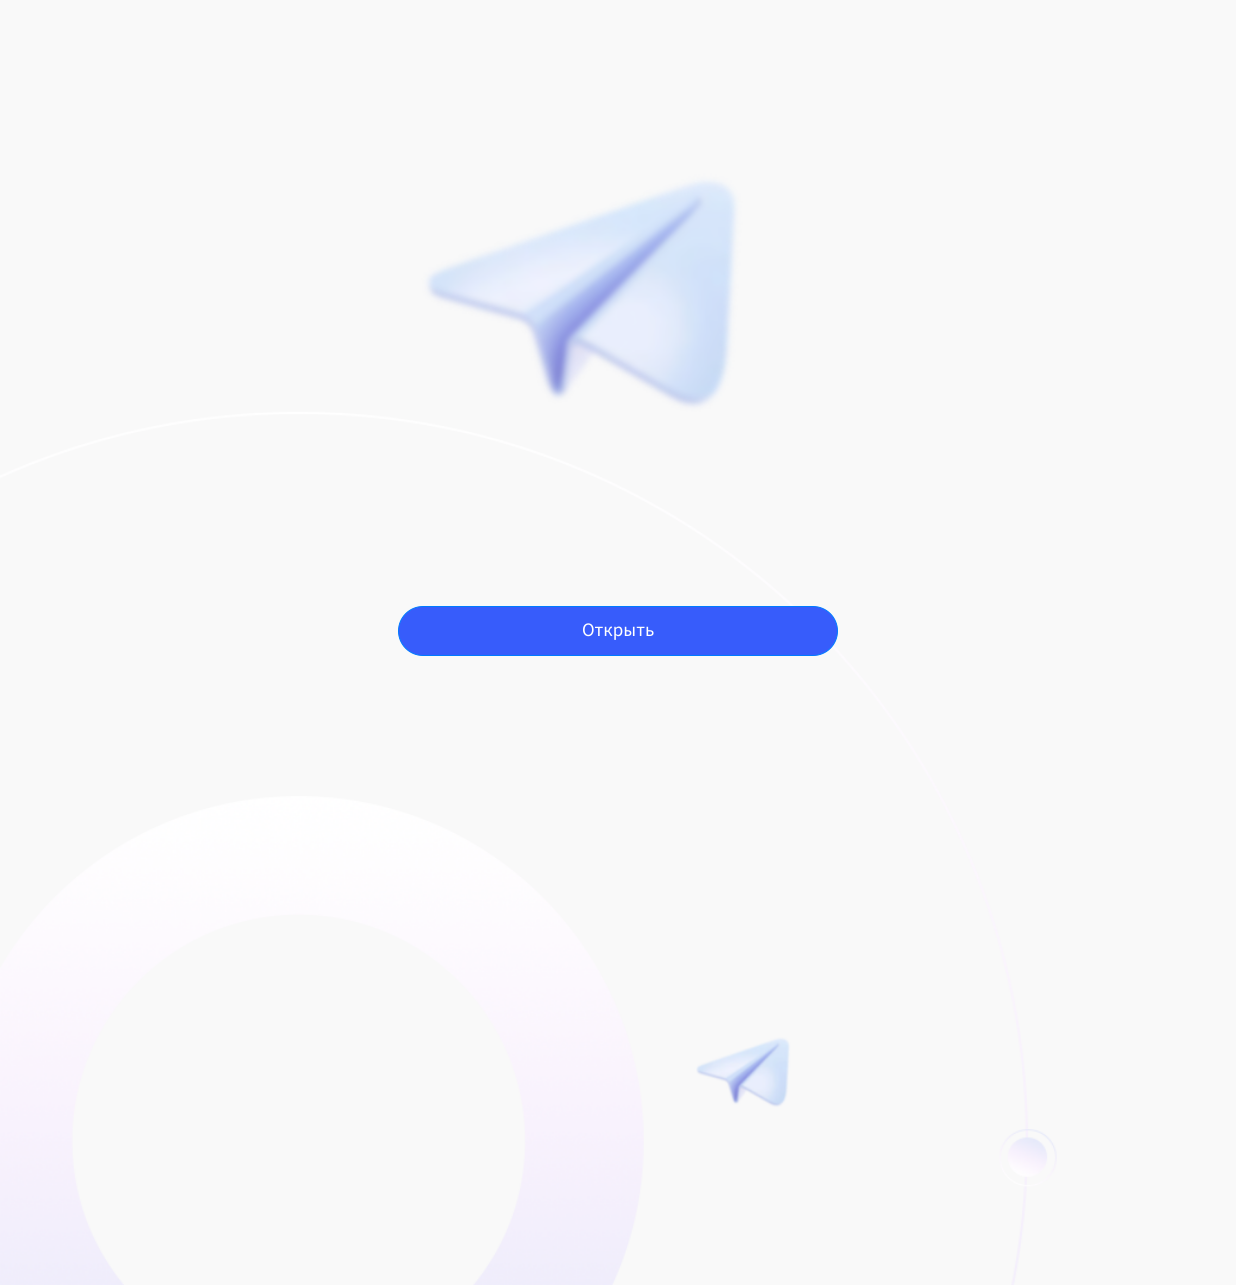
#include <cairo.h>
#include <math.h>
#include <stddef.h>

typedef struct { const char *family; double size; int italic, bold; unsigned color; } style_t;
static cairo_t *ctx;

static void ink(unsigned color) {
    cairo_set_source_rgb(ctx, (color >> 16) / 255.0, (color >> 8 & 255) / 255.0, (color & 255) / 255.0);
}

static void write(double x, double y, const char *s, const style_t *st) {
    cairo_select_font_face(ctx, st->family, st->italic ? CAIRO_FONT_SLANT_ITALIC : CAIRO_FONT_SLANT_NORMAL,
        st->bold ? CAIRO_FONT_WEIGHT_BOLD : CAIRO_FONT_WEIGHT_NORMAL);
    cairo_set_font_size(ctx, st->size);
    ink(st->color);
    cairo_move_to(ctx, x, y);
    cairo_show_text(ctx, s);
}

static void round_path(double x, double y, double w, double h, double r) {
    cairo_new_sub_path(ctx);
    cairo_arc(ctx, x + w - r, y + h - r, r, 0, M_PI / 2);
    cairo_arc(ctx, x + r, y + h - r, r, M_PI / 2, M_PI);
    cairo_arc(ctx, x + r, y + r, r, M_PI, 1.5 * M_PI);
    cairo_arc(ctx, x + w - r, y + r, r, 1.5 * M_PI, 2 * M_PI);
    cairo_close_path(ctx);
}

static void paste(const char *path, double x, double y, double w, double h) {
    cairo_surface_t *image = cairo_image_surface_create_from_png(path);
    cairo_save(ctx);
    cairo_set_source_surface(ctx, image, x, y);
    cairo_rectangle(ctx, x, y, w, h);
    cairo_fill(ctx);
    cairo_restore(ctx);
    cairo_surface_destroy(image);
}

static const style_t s1 = {"Source Sans Pro", 19, 0, 0, 0xffffff};

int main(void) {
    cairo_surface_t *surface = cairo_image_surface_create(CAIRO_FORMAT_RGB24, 1236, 1285);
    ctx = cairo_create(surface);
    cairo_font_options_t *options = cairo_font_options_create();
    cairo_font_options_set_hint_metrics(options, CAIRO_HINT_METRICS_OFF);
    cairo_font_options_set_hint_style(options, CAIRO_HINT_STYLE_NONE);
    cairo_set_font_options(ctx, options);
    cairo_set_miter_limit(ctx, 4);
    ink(0xffffff);
    cairo_paint(ctx);
    paste("pic1.png", 0, 0, 1236, 1285);
    ink(0x375cfb);
    round_path(398.5, 606.5, 439, 49, 24.5);
    cairo_fill_preserve(ctx);
    ink(0x007bff);
    cairo_set_line_width(ctx, 1);
    cairo_stroke(ctx);
    write(582, 636, "Открыть", &s1);
    cairo_surface_write_to_png(surface, "screenshot.png");
    cairo_font_options_destroy(options);
    cairo_destroy(ctx);
    cairo_surface_destroy(surface);
    return 0;
}
